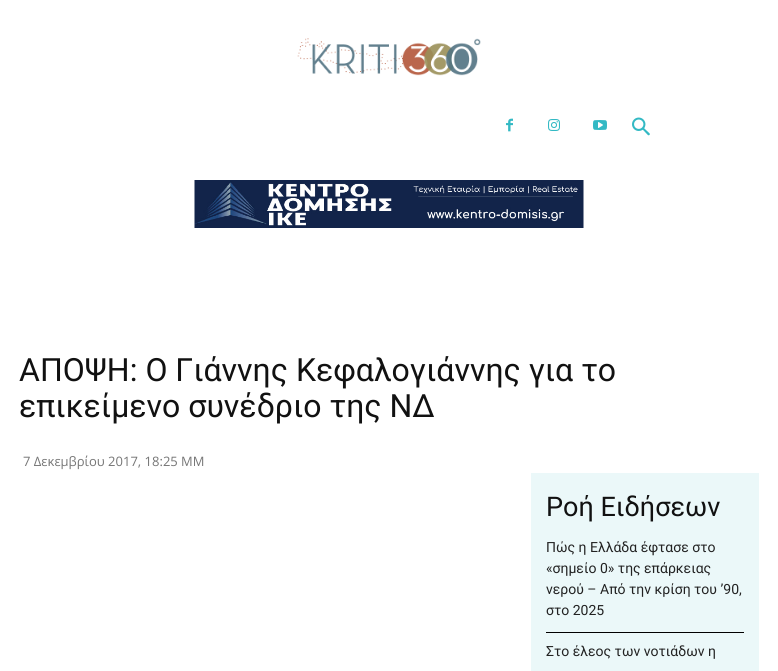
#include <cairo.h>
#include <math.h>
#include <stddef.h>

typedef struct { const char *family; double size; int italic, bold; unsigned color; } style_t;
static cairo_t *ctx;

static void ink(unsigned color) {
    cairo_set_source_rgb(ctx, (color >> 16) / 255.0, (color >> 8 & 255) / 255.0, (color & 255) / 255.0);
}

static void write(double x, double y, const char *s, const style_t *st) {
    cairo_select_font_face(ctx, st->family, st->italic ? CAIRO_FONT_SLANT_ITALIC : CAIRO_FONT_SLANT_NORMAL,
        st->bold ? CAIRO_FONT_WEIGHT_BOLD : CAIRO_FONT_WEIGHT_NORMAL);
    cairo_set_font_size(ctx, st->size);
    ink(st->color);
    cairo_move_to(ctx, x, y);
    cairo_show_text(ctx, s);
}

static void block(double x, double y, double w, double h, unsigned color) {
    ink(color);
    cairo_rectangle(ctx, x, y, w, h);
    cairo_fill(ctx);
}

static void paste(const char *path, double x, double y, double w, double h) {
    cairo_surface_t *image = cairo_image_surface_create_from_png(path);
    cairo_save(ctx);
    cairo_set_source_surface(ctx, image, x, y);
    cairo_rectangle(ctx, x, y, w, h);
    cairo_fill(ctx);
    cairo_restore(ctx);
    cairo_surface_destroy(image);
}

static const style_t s1 = {"Roboto", 32, 0, 0, 0x111111};
static const style_t s2 = {"Open Sans", 13, 0, 0, 0x767676};
static const style_t s3 = {"Roboto", 27, 0, 0, 0x111111};
static const style_t s4 = {"Roboto", 14, 0, 0, 0x222222};

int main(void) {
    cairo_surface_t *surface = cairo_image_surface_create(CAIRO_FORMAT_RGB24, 778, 671);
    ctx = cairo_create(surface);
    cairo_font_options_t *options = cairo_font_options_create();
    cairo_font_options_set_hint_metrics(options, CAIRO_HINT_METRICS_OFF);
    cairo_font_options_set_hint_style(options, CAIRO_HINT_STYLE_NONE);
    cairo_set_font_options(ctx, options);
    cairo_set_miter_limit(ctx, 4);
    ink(0xffffff);
    cairo_paint(ctx);
    paste("pic1.png", 194, 180, 390, 48);
    paste("pic2.png", 297, 38, 184, 38);
    paste("pic3.png", 506, 118, 7, 14);
    paste("pic4.png", 548, 119, 12, 12);
    paste("pic5.png", 593, 120, 14, 10);
    paste("pic6.png", 632, 117, 18, 19);
    write(19, 381, "ΑΠΟΨΗ: Ο Γιάννης Κεφαλογιάννης για το", &s1);
    write(19, 417, "επικείμενο συνέδριο της ΝΔ", &s1);
    write(23, 466, "7 Δεκεμβρίου 2017, 18:25 ΜΜ", &s2);
    block(531, 473, 228, 198, 0xebf8f9);
    write(546, 516, "Ροή Ειδήσεων", &s3);
    block(546, 632, 198, 1, 0x000000);
    write(546, 552, "Πώς η Ελλάδα έφτασε στο", &s4);
    write(546, 573, "«σημείο 0» της επάρκειας", &s4);
    write(546, 594, "νερού – Από την κρίση του ’90,", &s4);
    write(546, 615, "στο 2025", &s4);
    write(546, 656, "Στο έλεος των νοτιάδων η", &s4);
    cairo_surface_write_to_png(surface, "screenshot.png");
    cairo_font_options_destroy(options);
    cairo_destroy(ctx);
    cairo_surface_destroy(surface);
    return 0;
}
